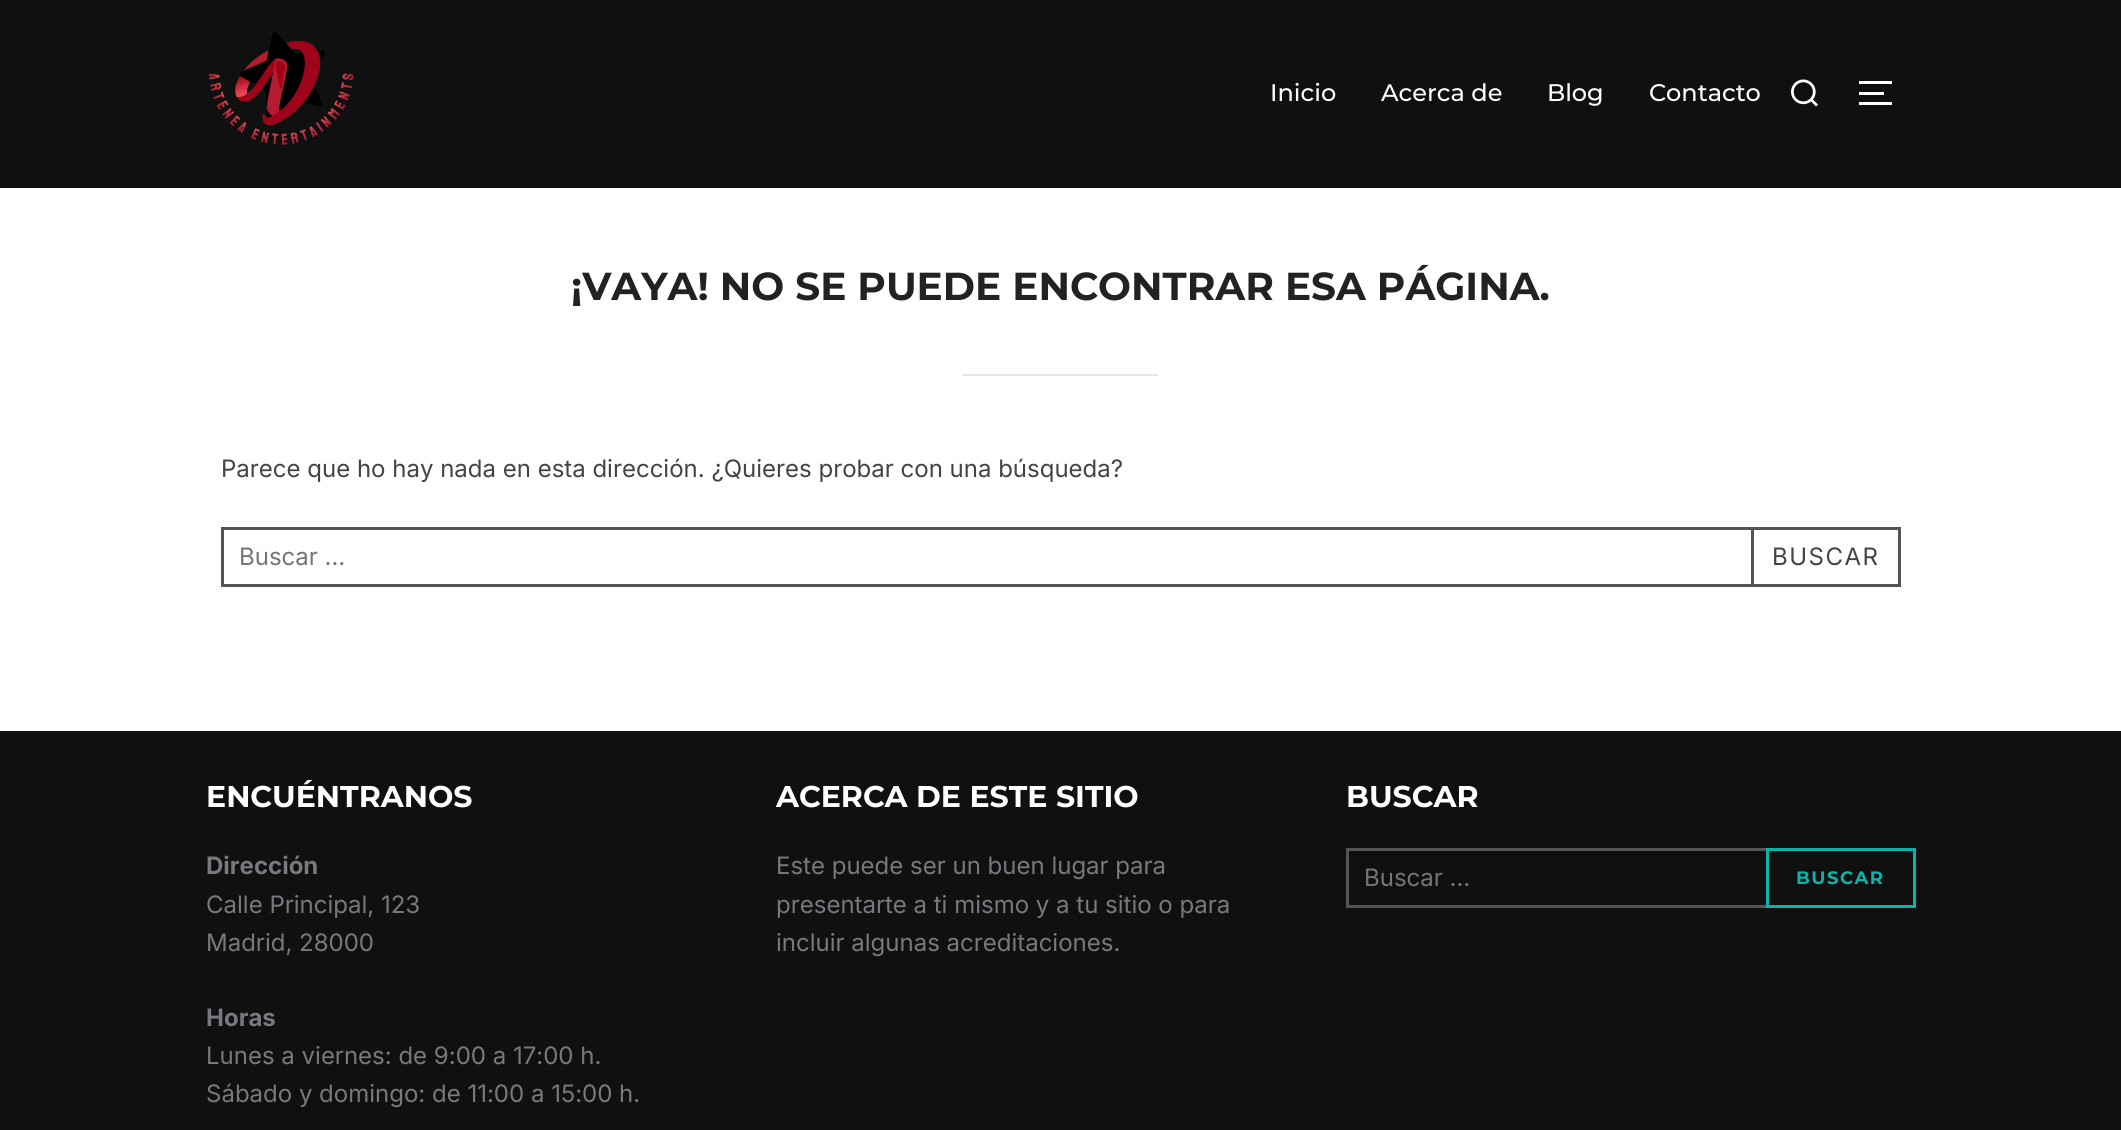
#include <cairo.h>
#include <math.h>
#include <stddef.h>

typedef struct { const char *family; double size; int italic, bold; unsigned color; } style_t;
static cairo_t *ctx;

static void ink(unsigned color) {
    cairo_set_source_rgb(ctx, (color >> 16) / 255.0, (color >> 8 & 255) / 255.0, (color & 255) / 255.0);
}

static void write(double x, double y, const char *s, const style_t *st) {
    cairo_select_font_face(ctx, st->family, st->italic ? CAIRO_FONT_SLANT_ITALIC : CAIRO_FONT_SLANT_NORMAL,
        st->bold ? CAIRO_FONT_WEIGHT_BOLD : CAIRO_FONT_WEIGHT_NORMAL);
    cairo_set_font_size(ctx, st->size);
    ink(st->color);
    cairo_move_to(ctx, x, y);
    cairo_show_text(ctx, s);
}

static void write_spaced(double x, double y, const char *s, double letter, double word) {
    cairo_move_to(ctx, x, y);
    while (*s) {
        char ch[5] = {0};
        int n = 0;
        do ch[n++] = *s++; while ((*s & 0xC0) == 0x80);
        cairo_show_text(ctx, ch);
        cairo_rel_move_to(ctx, letter + word * (*ch == ' '), 0);
    }
}

static void block(double x, double y, double w, double h, unsigned color) {
    ink(color);
    cairo_rectangle(ctx, x, y, w, h);
    cairo_fill(ctx);
}

static void paste(const char *path, double x, double y, double w, double h) {
    cairo_surface_t *image = cairo_image_surface_create_from_png(path);
    cairo_save(ctx);
    cairo_set_source_surface(ctx, image, x, y);
    cairo_rectangle(ctx, x, y, w, h);
    cairo_fill(ctx);
    cairo_restore(ctx);
    cairo_surface_destroy(image);
}

static const style_t s1 = {"Montserrat Medium", 24, 0, 0, 0xffffff};
static const style_t s2 = {"Montserrat", 39, 0, 1, 0x222222};
static const style_t s3 = {"Inter", 24, 0, 0, 0x444444};
static const style_t s4 = {"Inter", 24, 0, 0, 0x757575};
static const style_t s5 = {"Montserrat", 30, 0, 1, 0xffffff};
static const style_t s6 = {"Inter", 24, 0, 1, 0x78787f};
static const style_t s7 = {"Inter", 24, 0, 0, 0x78787f};

int main(void) {
    cairo_surface_t *surface = cairo_image_surface_create(CAIRO_FORMAT_RGB24, 2121, 1130);
    ctx = cairo_create(surface);
    cairo_font_options_t *options = cairo_font_options_create();
    cairo_font_options_set_hint_metrics(options, CAIRO_HINT_METRICS_OFF);
    cairo_font_options_set_hint_style(options, CAIRO_HINT_STYLE_NONE);
    cairo_set_font_options(ctx, options);
    cairo_set_miter_limit(ctx, 4);
    ink(0xffffff);
    cairo_paint(ctx);
    block(0, 0, 2121, 188, 0x101010);
    paste("pic1.png", 209, 31, 145, 114);
    write(1270, 101, "Inicio", &s1);
    write(1381, 101, "Acerca de", &s1);
    write(1547, 101, "Blog", &s1);
    write(1649, 101, "Contacto", &s1);
    paste("pic2.png", 1791, 79, 27, 28);
    block(1859, 81, 33, 3, 0xffffff);
    block(1859, 92, 25, 3, 0xffffff);
    block(1859, 102, 33, 3, 0xffffff);
    write(571, 300, "¡VAYA! NO SE PUEDE ENCONTRAR ESA PÁGINA.", &s2);
    block(963, 374, 195, 2, 0xe6e6e6);
    write(221, 477, "Parece que ho hay nada en esta dirección. ¿Quieres probar con una búsqueda?", &s3);
    cairo_rectangle(ctx, 222.5, 528.5, 1677, 57);
    ink(0x565555);
    cairo_set_line_width(ctx, 3);
    cairo_stroke(ctx);
    write(239, 565, "Buscar …", &s4);
    cairo_rectangle(ctx, 1752.5, 528.5, 147, 57);
    ink(0x565555);
    cairo_stroke(ctx);
    ink(0x444444);
    write_spaced(1772, 565, "BUSCAR", 1.5, 0);
    block(0, 731, 2121, 399, 0x101010);
    write(206, 807, "ENCUÉNTRANOS", &s5);
    write(206, 874, "Dirección", &s6);
    write(206, 913, "Calle Principal, 123", &s7);
    write(206, 951, "Madrid, 28000", &s7);
    write(206, 1026, "Horas", &s6);
    write(206, 1064, "Lunes a viernes: de 9:00 a 17:00 h.", &s7);
    write(206, 1102, "Sábado y domingo: de 11:00 a 15:00 h.", &s7);
    write(776, 807, "ACERCA DE ESTE SITIO", &s5);
    write(776, 874, "Este puede ser un buen lugar para", &s7);
    write(776, 913, "presentarte a ti mismo y a tu sitio o para", &s7);
    write(776, 951, "incluir algunas acreditaciones.", &s7);
    write(1346, 807, "BUSCAR", &s5);
    cairo_rectangle(ctx, 1347.5, 849.5, 567, 57);
    ink(0x565555);
    cairo_stroke(ctx);
    write(1364, 886, "Buscar …", &s4);
    cairo_rectangle(ctx, 1767.5, 849.5, 147, 57);
    ink(0x0bb4aa);
    cairo_stroke(ctx);
    cairo_select_font_face(ctx, "Montserrat", CAIRO_FONT_SLANT_NORMAL, CAIRO_FONT_WEIGHT_BOLD);
    cairo_set_font_size(ctx, 18);
    write_spaced(1796, 884, "BUSCAR", 1.5, 0);
    cairo_surface_write_to_png(surface, "screenshot.png");
    cairo_font_options_destroy(options);
    cairo_destroy(ctx);
    cairo_surface_destroy(surface);
    return 0;
}
